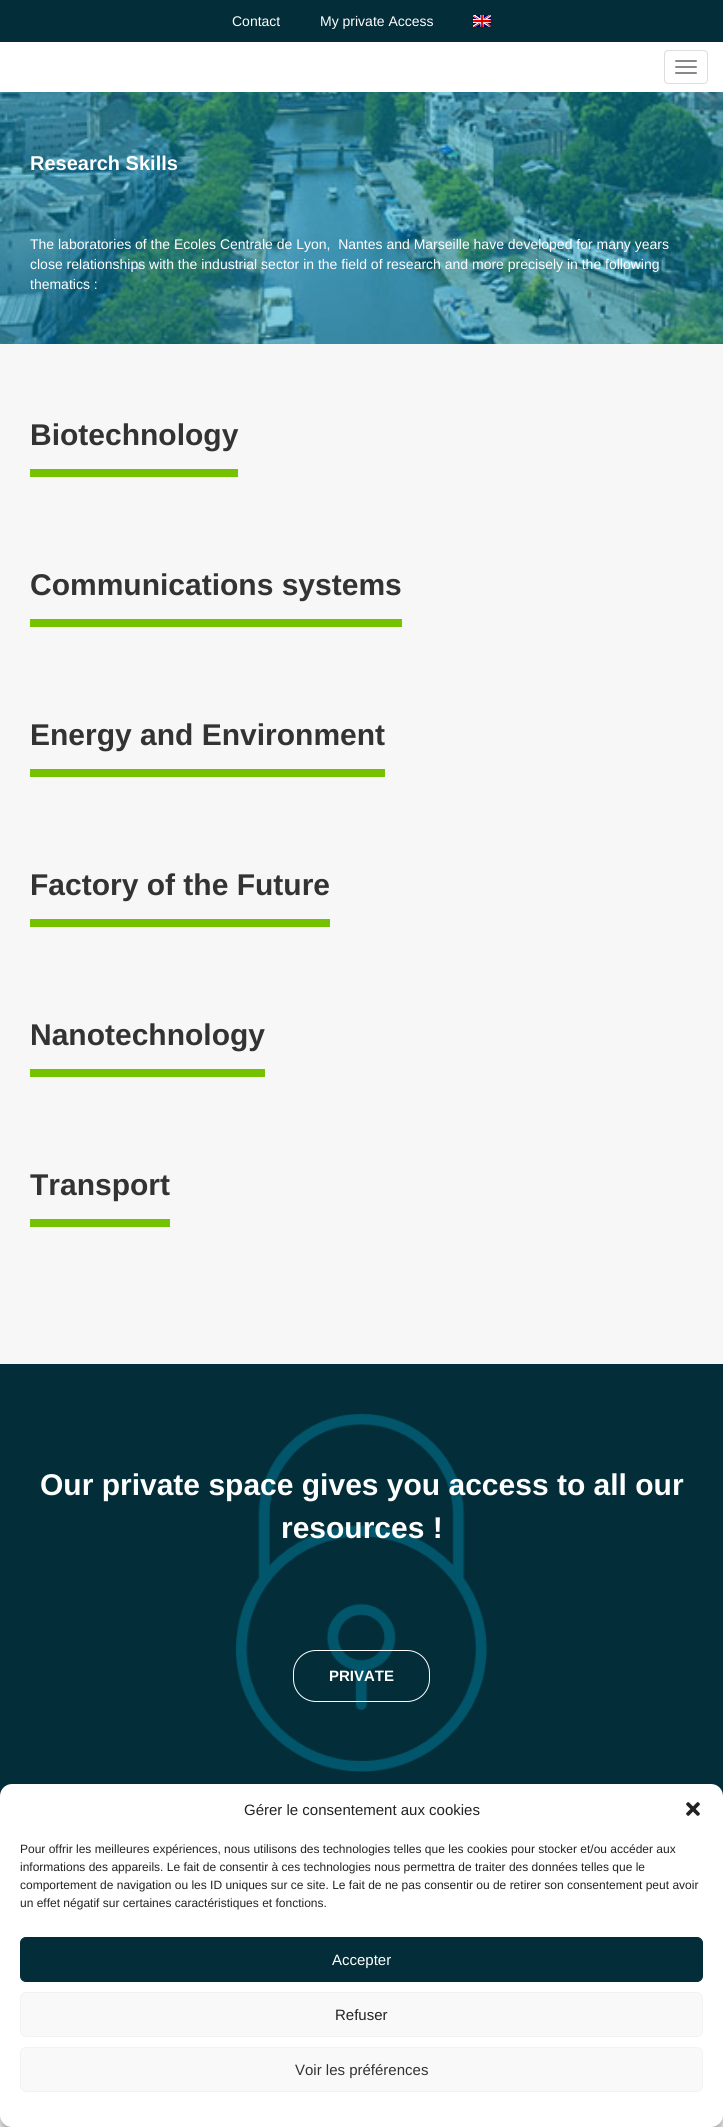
#include <cairo.h>
#include <math.h>
#include <stddef.h>

typedef struct { const char *family; double size; int italic, bold; unsigned color; } style_t;
static cairo_t *ctx;

static void ink(unsigned color) {
    cairo_set_source_rgb(ctx, (color >> 16) / 255.0, (color >> 8 & 255) / 255.0, (color & 255) / 255.0);
}

static void write(double x, double y, const char *s, const style_t *st) {
    cairo_select_font_face(ctx, st->family, st->italic ? CAIRO_FONT_SLANT_ITALIC : CAIRO_FONT_SLANT_NORMAL,
        st->bold ? CAIRO_FONT_WEIGHT_BOLD : CAIRO_FONT_WEIGHT_NORMAL);
    cairo_set_font_size(ctx, st->size);
    ink(st->color);
    cairo_move_to(ctx, x, y);
    cairo_show_text(ctx, s);
}

static void block(double x, double y, double w, double h, unsigned color) {
    ink(color);
    cairo_rectangle(ctx, x, y, w, h);
    cairo_fill(ctx);
}

static void round_path(double x, double y, double w, double h, double r) {
    cairo_new_sub_path(ctx);
    cairo_arc(ctx, x + w - r, y + h - r, r, 0, M_PI / 2);
    cairo_arc(ctx, x + r, y + h - r, r, M_PI / 2, M_PI);
    cairo_arc(ctx, x + r, y + r, r, M_PI, 1.5 * M_PI);
    cairo_arc(ctx, x + w - r, y + r, r, 1.5 * M_PI, 2 * M_PI);
    cairo_close_path(ctx);
}

static void blur_box(double x, double y, double w, double h, double r, double blur, double alpha) {
    cairo_push_group_with_content(ctx, CAIRO_CONTENT_ALPHA);
    cairo_set_operator(ctx, CAIRO_OPERATOR_SOURCE);
    for (int i = 15; i >= -15 && fmin(w, h) + blur * i / 3 > 0; i -= 2) {
        double e = blur * i / 6;
        cairo_set_source_rgba(ctx, 0, 0, 0, alpha * erfc((i - 1) / 8.5) / 2);
        round_path(x - e, y - e, w + 2 * e, h + 2 * e, fmax(0, fmin(r + e + blur * .6, fmin(w, h) / 2 + e)));
        cairo_fill(ctx);
    }
    cairo_pattern_t *soft = cairo_pop_group(ctx);
    cairo_mask(ctx, soft);
    cairo_pattern_destroy(soft);
}

static void paste(const char *path, double x, double y, double w, double h) {
    cairo_surface_t *image = cairo_image_surface_create_from_png(path);
    cairo_save(ctx);
    cairo_set_source_surface(ctx, image, x, y);
    cairo_rectangle(ctx, x, y, w, h);
    cairo_fill(ctx);
    cairo_restore(ctx);
    cairo_surface_destroy(image);
}

static const style_t s1 = {"Liberation Sans", 14, 0, 0, 0xffffff};
static const style_t s2 = {"Liberation Sans", 20, 0, 1, 0xffffff};
static const style_t s3 = {"Liberation Sans", 30, 0, 1, 0x333333};
static const style_t s4 = {"Liberation Sans", 30, 0, 1, 0xffffff};
static const style_t s5 = {"Liberation Sans", 15, 0, 1, 0xffffff};
static const style_t s6 = {"Liberation Sans", 15, 0, 0, 0x222222};
static const style_t s7 = {"Liberation Sans", 12, 0, 0, 0x222222};
static const style_t s8 = {"Liberation Sans", 15, 0, 0, 0xffffff};
static const style_t s9 = {"Liberation Sans", 15, 0, 0, 0x333333};

int main(void) {
    cairo_surface_t *surface = cairo_image_surface_create(CAIRO_FORMAT_RGB24, 723, 2127);
    ctx = cairo_create(surface);
    cairo_font_options_t *options = cairo_font_options_create();
    cairo_font_options_set_hint_metrics(options, CAIRO_HINT_METRICS_OFF);
    cairo_font_options_set_hint_style(options, CAIRO_HINT_STYLE_NONE);
    cairo_set_font_options(ctx, options);
    cairo_set_miter_limit(ctx, 4);
    ink(0xffffff);
    cairo_paint(ctx);
    block(0, 0, 723, 42, 0x032e39);
    write(232, 26, "Contact", &s1);
    write(320, 26, "My private Access", &s1);
    paste("pic1.png", 473, 15, 18, 12);
    round_path(664.5, 50.5, 43, 33, 3.5);
    ink(0xdddddd);
    cairo_set_line_width(ctx, 1);
    cairo_stroke(ctx);
    ink(0x888888);
    round_path(675, 60, 22, 2, 1);
    cairo_fill(ctx);
    round_path(675, 66, 22, 2, 1);
    cairo_fill(ctx);
    round_path(675, 72, 22, 2, 1);
    cairo_fill(ctx);
    paste("pic2.png", 0, 92, 723, 252);
    write(30, 170, "Research Skills", &s2);
    write(30, 249, "The laboratories of the Ecoles Centrale de Lyon,  Nantes and Marseille have developed for many years", &s1);
    write(30, 269, "close relationships with the industrial sector in the field of research and more precisely in the following", &s1);
    write(30, 289, "thematics :", &s1);
    block(0, 344, 723, 1020, 0xf7f7f7);
    write(30, 445, "Biotechnology", &s3);
    block(30, 469, 208, 8, 0x74c200);
    write(30, 595, "Communications systems", &s3);
    block(30, 619, 372, 8, 0x74c200);
    write(30, 745, "Energy and Environment", &s3);
    block(30, 769, 355, 8, 0x74c200);
    write(30, 895, "Factory of the Future", &s3);
    block(30, 919, 300, 8, 0x74c200);
    write(30, 1045, "Nanotechnology", &s3);
    block(30, 1069, 235, 8, 0x74c200);
    write(30, 1195, "Transport", &s3);
    block(30, 1219, 140, 8, 0x74c200);
    block(0, 1364, 723, 432, 0x032e39);
    paste("pic3.png", 236, 1414, 251, 358);
    write(40, 1495, "Our private space gives you access to all our", &s4);
    write(281, 1538, "resources !", &s4);
    round_path(293.5, 1650.5, 136, 51, 22.5);
    cairo_stroke(ctx);
    write(329, 1681, "PRIVATE", &s5);
    ink(0x000000);
    blur_box(0, 1790, 723, 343, 12, 3, 0.23);
    blur_box(0, 1794, 723, 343, 12, 10, 0.19);
    ink(0xffffff);
    round_path(0, 1784, 723, 343, 12);
    cairo_fill(ctx);
    write(244, 1815, "Gérer le consentement aux cookies", &s6);
    paste("pic4.png", 686, 1802, 14, 14);
    write(20, 1853, "Pour offrir les meilleures expériences, nous utilisons des technologies telles que les cookies pour stocker et/ou accéder aux", &s7);
    write(20, 1871, "informations des appareils. Le fait de consentir à ces technologies nous permettra de traiter des données telles que le", &s7);
    write(20, 1889, "comportement de navigation ou les ID uniques sur ce site. Le fait de ne pas consentir ou de retirer son consentement peut avoir", &s7);
    write(20, 1907, "un effet négatif sur certaines caractéristiques et fonctions.", &s7);
    ink(0x032e39);
    round_path(20.5, 1937.5, 682, 44, 5.5);
    cairo_fill_preserve(ctx);
    cairo_stroke(ctx);
    write(332, 1965, "Accepter", &s8);
    ink(0xf9f9f9);
    round_path(20.5, 1992.5, 682, 44, 5.5);
    cairo_fill_preserve(ctx);
    ink(0xf2f2f2);
    cairo_stroke(ctx);
    write(335, 2020, "Refuser", &s6);
    ink(0xf9f9f9);
    round_path(20.5, 2047.5, 682, 44, 5.5);
    cairo_fill_preserve(ctx);
    ink(0xf2f2f2);
    cairo_stroke(ctx);
    write(295, 2075, "Voir les préférences", &s9);
    cairo_surface_write_to_png(surface, "screenshot.png");
    cairo_font_options_destroy(options);
    cairo_destroy(ctx);
    cairo_surface_destroy(surface);
    return 0;
}
